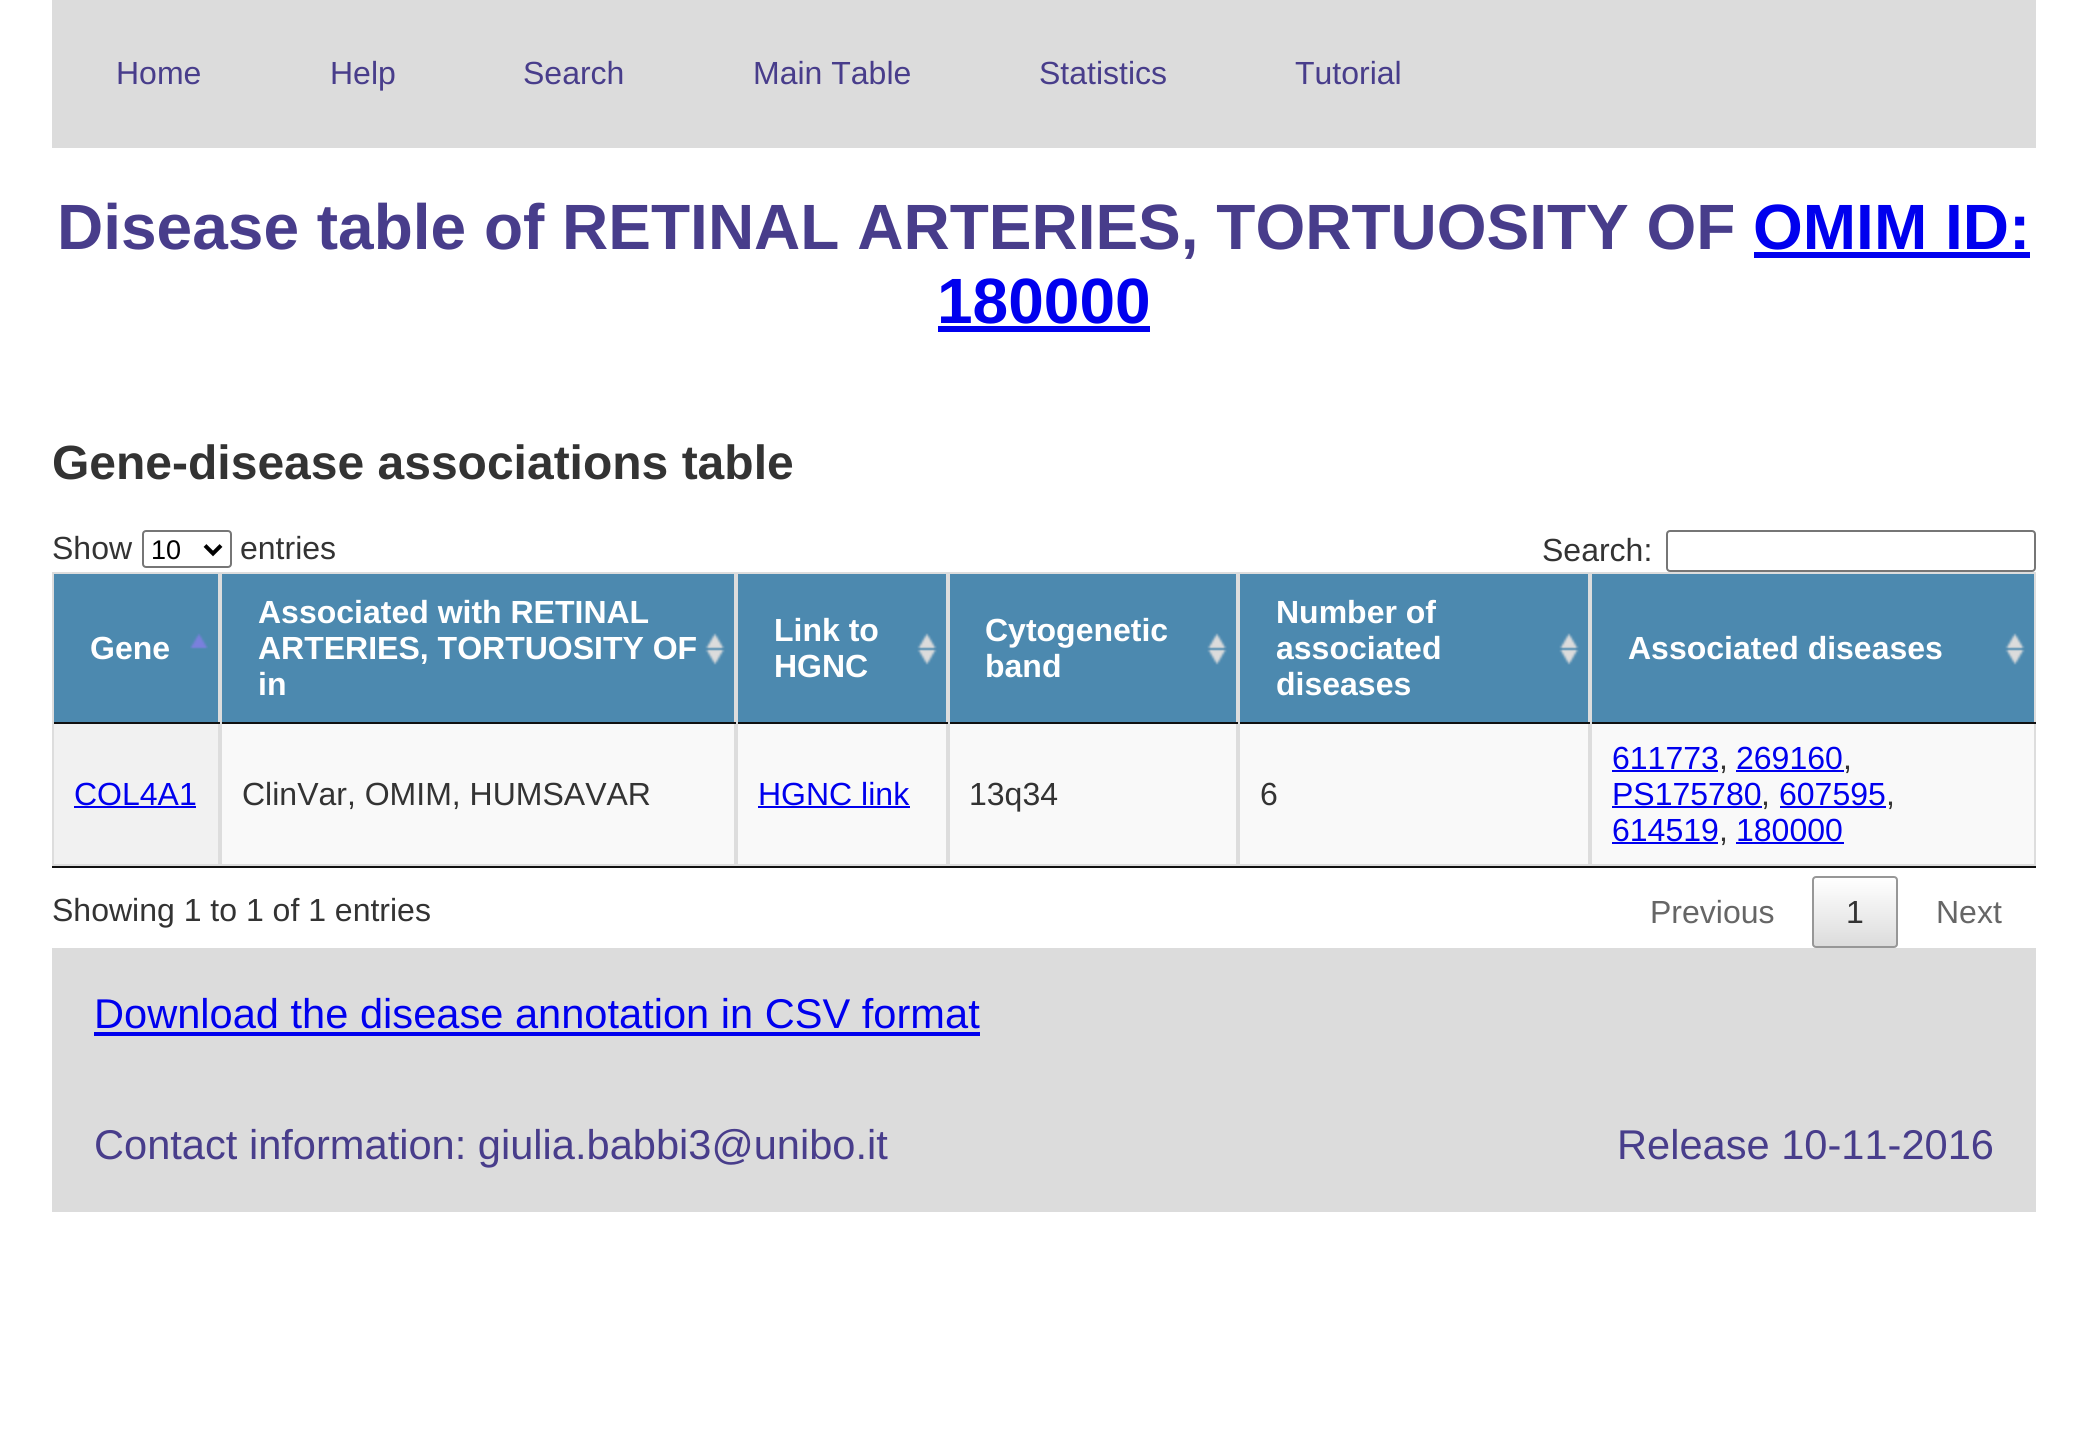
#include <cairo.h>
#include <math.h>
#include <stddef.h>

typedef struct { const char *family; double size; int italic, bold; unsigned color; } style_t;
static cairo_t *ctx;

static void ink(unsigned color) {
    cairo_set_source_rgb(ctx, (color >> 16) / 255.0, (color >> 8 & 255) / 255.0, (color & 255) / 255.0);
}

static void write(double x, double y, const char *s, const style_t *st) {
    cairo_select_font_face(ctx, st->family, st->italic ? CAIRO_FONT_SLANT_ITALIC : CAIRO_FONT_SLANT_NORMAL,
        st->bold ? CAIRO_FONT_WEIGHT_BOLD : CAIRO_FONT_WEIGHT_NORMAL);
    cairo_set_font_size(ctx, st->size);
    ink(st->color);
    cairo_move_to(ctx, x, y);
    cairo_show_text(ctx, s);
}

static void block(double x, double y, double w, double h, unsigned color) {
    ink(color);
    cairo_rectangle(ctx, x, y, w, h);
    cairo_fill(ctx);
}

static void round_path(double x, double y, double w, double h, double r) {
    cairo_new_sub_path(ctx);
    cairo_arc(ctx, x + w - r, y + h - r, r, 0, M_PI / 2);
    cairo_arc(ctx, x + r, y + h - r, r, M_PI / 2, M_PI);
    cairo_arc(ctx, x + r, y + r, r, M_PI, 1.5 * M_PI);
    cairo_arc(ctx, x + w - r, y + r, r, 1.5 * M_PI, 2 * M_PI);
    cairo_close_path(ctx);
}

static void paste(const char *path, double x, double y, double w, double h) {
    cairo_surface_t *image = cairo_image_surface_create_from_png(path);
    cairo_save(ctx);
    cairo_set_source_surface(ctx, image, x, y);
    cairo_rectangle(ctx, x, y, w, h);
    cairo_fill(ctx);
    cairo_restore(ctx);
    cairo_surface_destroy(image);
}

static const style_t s1 = {"Liberation Sans", 32, 0, 0, 0x483d8b};
static const style_t s2 = {"Liberation Sans", 64, 0, 1, 0x483d8b};
static const style_t s3 = {"Liberation Sans", 64, 0, 1, 0x0000ee};
static const style_t s4 = {"Liberation Sans", 48, 0, 1, 0x333333};
static const style_t s5 = {"Liberation Sans", 32, 0, 0, 0x333333};
static const style_t s6 = {"Liberation Sans", 27, 0, 0, 0x000000};
static const style_t s7 = {"Liberation Sans", 32, 0, 1, 0xffffff};
static const style_t s8 = {"Liberation Sans", 32, 0, 0, 0x0000ee};
static const style_t s9 = {"Liberation Sans", 32, 0, 0, 0x666666};
static const style_t s10 = {"Liberation Sans", 41.6, 0, 0, 0x0000ee};
static const style_t s11 = {"Liberation Sans", 41.6, 0, 0, 0x483d8b};

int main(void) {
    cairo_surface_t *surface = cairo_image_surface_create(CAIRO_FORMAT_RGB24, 2088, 1455);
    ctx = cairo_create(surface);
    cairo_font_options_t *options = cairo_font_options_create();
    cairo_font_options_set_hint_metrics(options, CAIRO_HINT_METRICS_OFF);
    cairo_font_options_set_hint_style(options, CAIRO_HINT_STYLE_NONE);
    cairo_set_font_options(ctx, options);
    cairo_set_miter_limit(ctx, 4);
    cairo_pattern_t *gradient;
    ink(0xffffff);
    cairo_paint(ctx);
    block(52, 0, 1984, 148, 0xdcdcdc);
    write(116, 84, "Home", &s1);
    write(330, 84, "Help", &s1);
    write(523, 84, "Search", &s1);
    write(753, 84, "Main Table", &s1);
    write(1039, 84, "Statistics", &s1);
    write(1295, 84, "Tutorial", &s1);
    write(57, 249, "Disease table of RETINAL ARTERIES, TORTUOSITY OF", &s2);
    write(1753, 249, "OMIM ID:", &s3);
    block(1754, 252, 276, 6, 0x0000ee);
    write(937, 323, "180000", &s3);
    block(938, 326, 212, 6, 0x0000ee);
    write(52, 479, "Gene-disease associations table", &s4);
    write(52, 559, "Show", &s5);
    round_path(143, 531, 88, 36, 3);
    ink(0x767676);
    cairo_stroke(ctx);
    cairo_new_path(ctx);
    cairo_move_to(ctx, 205, 545.5);
    cairo_line_to(ctx, 213, 553.5);
    cairo_line_to(ctx, 221, 545.5);
    ink(0x000000);
    cairo_set_line_width(ctx, 4);
    cairo_stroke(ctx);
    write(151, 559, "10", &s6);
    write(240, 559, "entries", &s5);
    write(1542, 561, "Search:", &s5);
    round_path(1667, 531, 368, 40, 3);
    ink(0x767676);
    cairo_set_line_width(ctx, 2);
    cairo_stroke(ctx);
    block(52, 866, 1984, 2, 0x111111);
    block(54, 574, 164, 148, 0x4c89af);
    paste("pic1.png", 190, 633, 18, 16);
    block(52, 572, 1984, 2, 0xdddddd);
    block(218, 572, 2, 294, 0xdddddd);
    block(52, 722, 168, 2, 0x111111);
    block(52, 572, 2, 152, 0xdddddd);
    write(90, 659, "Gene", &s7);
    block(222, 574, 512, 148, 0x4c89af);
    paste("pic2.png", 705, 633, 20, 32);
    block(734, 572, 2, 152, 0xdddddd);
    block(220, 722, 516, 2, 0x111111);
    block(220, 572, 2, 152, 0xdddddd);
    write(258, 623, "Associated with RETINAL", &s7);
    write(258, 659, "ARTERIES, TORTUOSITY OF", &s7);
    write(258, 695, "in", &s7);
    block(738, 574, 208, 148, 0x4c89af);
    paste("pic2.png", 917, 633, 20, 32);
    block(946, 572, 2, 152, 0xdddddd);
    block(736, 722, 212, 2, 0x111111);
    block(736, 572, 2, 152, 0xdddddd);
    write(774, 641, "Link to", &s7);
    write(774, 677, "HGNC", &s7);
    block(950, 574, 286, 148, 0x4c89af);
    paste("pic2.png", 1207, 633, 20, 32);
    block(1236, 572, 2, 152, 0xdddddd);
    block(948, 722, 290, 2, 0x111111);
    block(948, 572, 2, 152, 0xdddddd);
    write(985, 641, "Cytogenetic", &s7);
    write(985, 677, "band", &s7);
    block(1240, 574, 348, 148, 0x4c89af);
    paste("pic2.png", 1559, 633, 20, 32);
    block(1588, 572, 2, 152, 0xdddddd);
    block(1238, 722, 352, 2, 0x111111);
    block(1238, 572, 2, 152, 0xdddddd);
    write(1276, 623, "Number of", &s7);
    write(1276, 659, "associated", &s7);
    write(1276, 695, "diseases", &s7);
    block(1592, 574, 442, 148, 0x4c89af);
    paste("pic2.png", 2005, 633, 20, 32);
    block(2034, 572, 2, 294, 0xdddddd);
    block(1590, 722, 446, 2, 0x111111);
    block(1590, 572, 2, 152, 0xdddddd);
    write(1628, 659, "Associated diseases", &s7);
    block(222, 724, 1812, 140, 0xf9f9f9);
    block(54, 724, 164, 140, 0xf1f1f1);
    block(52, 864, 168, 2, 0xdddddd);
    block(52, 724, 2, 142, 0xdddddd);
    write(74, 805, "COL4A1", &s8);
    block(74, 806, 122, 2, 0x0000ee);
    block(734, 724, 2, 142, 0xdddddd);
    block(220, 864, 516, 2, 0xdddddd);
    block(220, 724, 2, 142, 0xdddddd);
    write(242, 805, "ClinVar, OMIM, HUMSAVAR", &s5);
    block(946, 724, 2, 142, 0xdddddd);
    block(736, 864, 212, 2, 0xdddddd);
    block(736, 724, 2, 142, 0xdddddd);
    write(758, 805, "HGNC link", &s8);
    block(758, 806, 152, 2, 0x0000ee);
    block(1236, 724, 2, 142, 0xdddddd);
    block(948, 864, 290, 2, 0xdddddd);
    block(948, 724, 2, 142, 0xdddddd);
    write(969, 805, "13q34", &s5);
    block(1588, 724, 2, 142, 0xdddddd);
    block(1238, 864, 798, 2, 0xdddddd);
    block(1238, 724, 2, 142, 0xdddddd);
    write(1260, 805, "6", &s5);
    block(1590, 724, 2, 142, 0xdddddd);
    write(1612, 769, "611773", &s8);
    block(1612, 770, 106, 2, 0x0000ee);
    write(1719, 769, ",", &s5);
    write(1736, 769, "269160", &s8);
    block(1736, 770, 108, 2, 0x0000ee);
    write(1843, 769, ",", &s5);
    write(1612, 805, "PS175780", &s8);
    block(1612, 806, 150, 2, 0x0000ee);
    write(1761, 805, ",", &s5);
    write(1779, 805, "607595", &s8);
    block(1780, 806, 106, 2, 0x0000ee);
    write(1886, 805, ",", &s5);
    write(1612, 841, "614519", &s8);
    block(1612, 842, 106, 2, 0x0000ee);
    write(1719, 841, ",", &s5);
    write(1736, 841, "180000", &s8);
    block(1736, 842, 108, 2, 0x0000ee);
    write(52, 921, "Showing 1 to 1 of 1 entries", &s5);
    write(1650, 923, "Previous", &s9);
    cairo_save(ctx);
    round_path(1812, 876, 86, 72, 4);
    cairo_clip(ctx);
    gradient = cairo_pattern_create_linear(1855, 878, 1855, 946);
    cairo_pattern_add_color_stop_rgba(gradient, 0, 1, 1, 1, 1);
    cairo_pattern_add_color_stop_rgba(gradient, 1, 0.863, 0.863, 0.863, 1);
    cairo_set_source(ctx, gradient);
    cairo_pattern_destroy(gradient);
    cairo_rectangle(ctx, 1812, 878, 86, 68);
    cairo_fill(ctx);
    cairo_restore(ctx);
    round_path(1813, 877, 84, 70, 3);
    ink(0x979797);
    cairo_stroke(ctx);
    write(1846, 923, "1", &s5);
    write(1936, 923, "Next", &s9);
    block(52, 948, 1984, 264, 0xdcdcdc);
    write(94, 1028, "Download the disease annotation in CSV format", &s10);
    block(94, 1032, 886, 4, 0x0000ee);
    write(94, 1159, "Contact information: giulia.babbi3@unibo.it", &s11);
    write(1617, 1159, "Release 10-11-2016", &s11);
    cairo_surface_write_to_png(surface, "screenshot.png");
    cairo_font_options_destroy(options);
    cairo_destroy(ctx);
    cairo_surface_destroy(surface);
    return 0;
}
